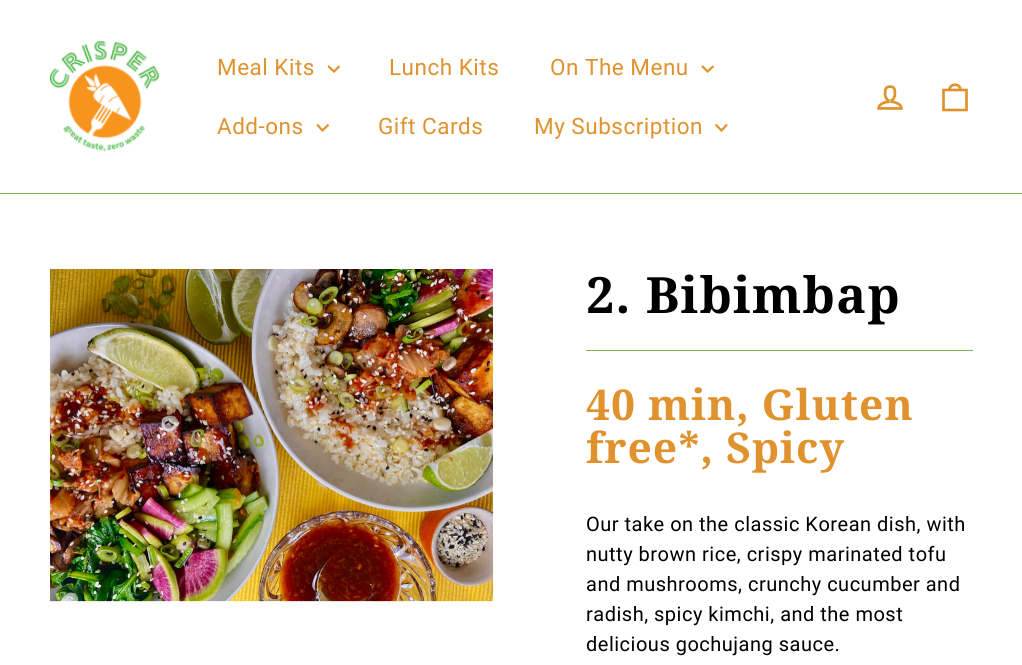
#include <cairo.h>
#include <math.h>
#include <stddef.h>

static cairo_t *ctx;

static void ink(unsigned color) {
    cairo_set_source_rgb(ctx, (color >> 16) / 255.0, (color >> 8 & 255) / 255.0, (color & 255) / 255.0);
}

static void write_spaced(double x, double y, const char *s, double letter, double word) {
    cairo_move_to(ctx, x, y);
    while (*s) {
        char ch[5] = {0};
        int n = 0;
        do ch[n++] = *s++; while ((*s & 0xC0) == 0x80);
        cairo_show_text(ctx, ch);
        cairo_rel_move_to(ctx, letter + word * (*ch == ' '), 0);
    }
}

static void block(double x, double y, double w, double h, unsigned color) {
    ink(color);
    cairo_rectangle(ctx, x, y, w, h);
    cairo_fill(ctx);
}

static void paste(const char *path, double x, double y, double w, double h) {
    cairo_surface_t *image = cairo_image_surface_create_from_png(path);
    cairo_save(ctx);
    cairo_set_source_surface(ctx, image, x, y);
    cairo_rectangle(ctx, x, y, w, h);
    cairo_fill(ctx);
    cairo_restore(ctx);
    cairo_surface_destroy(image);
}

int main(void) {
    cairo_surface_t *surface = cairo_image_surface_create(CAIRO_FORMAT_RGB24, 1022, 665);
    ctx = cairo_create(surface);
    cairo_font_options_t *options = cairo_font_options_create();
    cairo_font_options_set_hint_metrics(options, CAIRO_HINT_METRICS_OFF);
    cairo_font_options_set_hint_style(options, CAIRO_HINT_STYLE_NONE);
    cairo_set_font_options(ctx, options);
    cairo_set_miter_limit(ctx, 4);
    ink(0xffffff);
    cairo_paint(ctx);
    block(0, 193, 1022, 1, 0x79b651);
    paste("pic1.png", 50, 41, 109, 111);
    cairo_select_font_face(ctx, "Roboto", CAIRO_FONT_SLANT_NORMAL, CAIRO_FONT_WEIGHT_NORMAL);
    cairo_set_font_size(ctx, 22.5);
    ink(0xdf922e);
    write_spaced(217, 75, "Meal Kits", 0.5, 0);
    cairo_save(ctx);
    cairo_rectangle(ctx, 328, 63, 12, 12);
    cairo_clip(ctx);
    cairo_new_path(ctx);
    cairo_move_to(ctx, 328, 66);
    cairo_line_to(ctx, 334, 71.5);
    cairo_line_to(ctx, 339.5, 66);
    cairo_set_line_width(ctx, 2.2);
    cairo_stroke(ctx);
    cairo_restore(ctx);
    write_spaced(389, 75, "Lunch Kits", 0.5, 0);
    write_spaced(550, 75, "On The Menu", 0.5, 0);
    cairo_new_path(ctx);
    cairo_move_to(ctx, 702, 66);
    cairo_line_to(ctx, 707.5, 71.5);
    cairo_line_to(ctx, 713.5, 66);
    cairo_set_line_width(ctx, 2.2);
    cairo_stroke(ctx);
    write_spaced(217, 134, "Add-ons", 0.5, 0);
    cairo_new_path(ctx);
    cairo_move_to(ctx, 317, 124.5);
    cairo_line_to(ctx, 322.5, 130.5);
    cairo_line_to(ctx, 328.5, 124.5);
    cairo_stroke(ctx);
    write_spaced(378, 134, "Gift Cards", 0.5, 0);
    write_spaced(534, 134, "My Subscription", 0.5, 0);
    cairo_new_path(ctx);
    cairo_move_to(ctx, 715.5, 124.5);
    cairo_line_to(ctx, 721.5, 130.5);
    cairo_line_to(ctx, 727, 124.5);
    cairo_stroke(ctx);
    paste("pic2.png", 877, 85, 26, 25);
    cairo_new_path(ctx);
    cairo_move_to(ctx, 943.5, 90);
    cairo_line_to(ctx, 966.5, 90);
    cairo_line_to(ctx, 966.5, 110);
    cairo_line_to(ctx, 943.5, 110);
    cairo_close_path(ctx);
    cairo_move_to(ctx, 949.5, 90);
    cairo_curve_to(ctx, 949.5, 83, 960.5, 83, 960.5, 90);
    cairo_set_line_width(ctx, 2.7);
    cairo_stroke(ctx);
    paste("pic3.png", 50, 269, 443, 333);
    cairo_select_font_face(ctx, "Noto Serif", CAIRO_FONT_SLANT_NORMAL, CAIRO_FONT_WEIGHT_BOLD);
    cairo_set_font_size(ctx, 50);
    ink(0x000000);
    write_spaced(586, 313, "2. Bibimbap", 1.25, 0);
    block(586, 350, 387, 1, 0x79b651);
    cairo_set_font_size(ctx, 42.5);
    ink(0xdf922e);
    write_spaced(586, 420, "40 min, Gluten", 1, 0);
    write_spaced(586, 463, "free*, Spicy", 1, 0);
    cairo_select_font_face(ctx, "Roboto", CAIRO_FONT_SLANT_NORMAL, CAIRO_FONT_WEIGHT_NORMAL);
    cairo_set_font_size(ctx, 20);
    ink(0x000000);
    write_spaced(586, 531, "Our take on the classic Korean dish, with", 0.5, 0);
    write_spaced(586, 561, "nutty brown rice, crispy marinated tofu", 0.5, 0);
    write_spaced(586, 591, "and mushrooms, crunchy cucumber and", 0.5, 0);
    write_spaced(586, 621, "radish, spicy kimchi, and the most", 0.5, 0);
    write_spaced(586, 651, "delicious gochujang sauce.", 0.5, 0);
    cairo_surface_write_to_png(surface, "screenshot.png");
    cairo_font_options_destroy(options);
    cairo_destroy(ctx);
    cairo_surface_destroy(surface);
    return 0;
}
